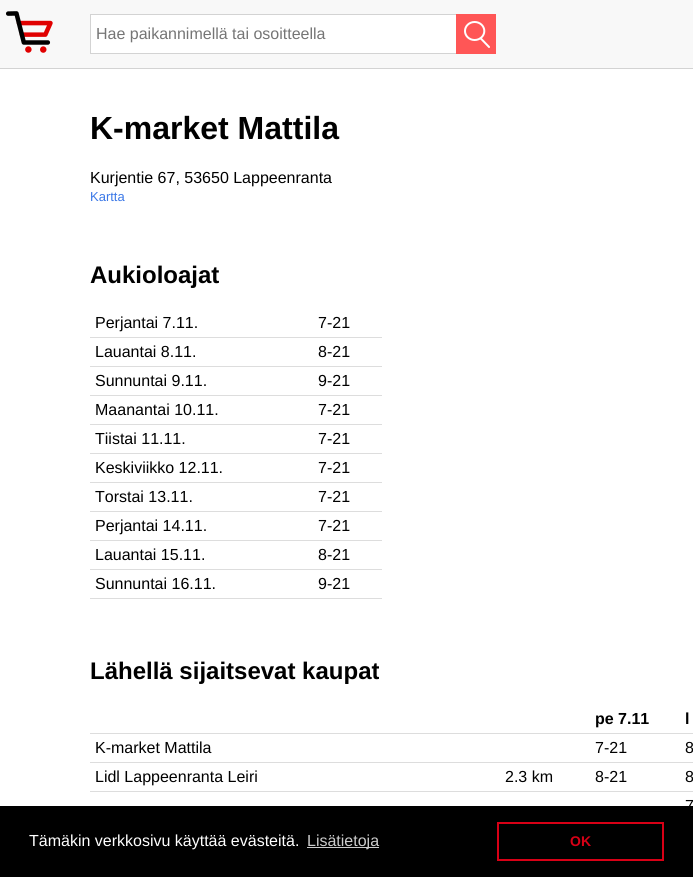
#include <cairo.h>
#include <math.h>
#include <stddef.h>

typedef struct { const char *family; double size; int italic, bold; unsigned color; } style_t;
static cairo_t *ctx;

static void ink(unsigned color) {
    cairo_set_source_rgb(ctx, (color >> 16) / 255.0, (color >> 8 & 255) / 255.0, (color & 255) / 255.0);
}

static void write(double x, double y, const char *s, const style_t *st) {
    cairo_select_font_face(ctx, st->family, st->italic ? CAIRO_FONT_SLANT_ITALIC : CAIRO_FONT_SLANT_NORMAL,
        st->bold ? CAIRO_FONT_WEIGHT_BOLD : CAIRO_FONT_WEIGHT_NORMAL);
    cairo_set_font_size(ctx, st->size);
    ink(st->color);
    cairo_move_to(ctx, x, y);
    cairo_show_text(ctx, s);
}

static void block(double x, double y, double w, double h, unsigned color) {
    ink(color);
    cairo_rectangle(ctx, x, y, w, h);
    cairo_fill(ctx);
}

static void paste(const char *path, double x, double y, double w, double h) {
    cairo_surface_t *image = cairo_image_surface_create_from_png(path);
    cairo_save(ctx);
    cairo_set_source_surface(ctx, image, x, y);
    cairo_rectangle(ctx, x, y, w, h);
    cairo_fill(ctx);
    cairo_restore(ctx);
    cairo_surface_destroy(image);
}

static const style_t s1 = {"Liberation Sans", 16, 0, 0, 0x757575};
static const style_t s2 = {"Liberation Sans", 32, 0, 1, 0x000000};
static const style_t s3 = {"Liberation Sans", 16, 0, 0, 0x000000};
static const style_t s4 = {"Liberation Sans", 13, 0, 0, 0x3b78e7};
static const style_t s5 = {"Liberation Sans", 24, 0, 1, 0x000000};
static const style_t s6 = {"Liberation Sans", 16, 0, 1, 0x000000};
static const style_t s7 = {"Liberation Sans", 16, 0, 0, 0xffffff};
static const style_t s8 = {"Liberation Sans", 16, 0, 0, 0xcccccc};
static const style_t s9 = {"Liberation Sans", 14, 0, 1, 0xd80016};

int main(void) {
    cairo_surface_t *surface = cairo_image_surface_create(CAIRO_FORMAT_RGB24, 693, 877);
    ctx = cairo_create(surface);
    cairo_font_options_t *options = cairo_font_options_create();
    cairo_font_options_set_hint_metrics(options, CAIRO_HINT_METRICS_OFF);
    cairo_font_options_set_hint_style(options, CAIRO_HINT_STYLE_NONE);
    cairo_set_font_options(ctx, options);
    cairo_set_miter_limit(ctx, 4);
    ink(0xffffff);
    cairo_paint(ctx);
    block(0, 0, 693, 68, 0xf8f8f8);
    paste("pic1.png", 6, 11, 47, 42);
    block(0, 68, 693, 1, 0xd3d3d3);
    block(90, 14, 366, 1, 0xd3d3d3);
    block(90, 53, 366, 1, 0xd3d3d3);
    block(90, 14, 1, 40, 0xd3d3d3);
    block(91, 15, 365, 38, 0xffffff);
    write(96, 39, "Hae paikannimellä tai osoitteella", &s1);
    block(456, 14, 40, 40, 0xff5656);
    paste("pic2.png", 464, 21, 26, 27);
    write(90, 139, "K-market Mattila", &s2);
    write(90, 183, "Kurjentie 67, 53650 Lappeenranta", &s3);
    write(90, 201, "Kartta", &s4);
    write(90, 283, "Aukioloajat", &s5);
    write(95, 328, "Perjantai 7.11.", &s3);
    block(90, 337, 292, 1, 0xdddddd);
    write(318, 328, "7-21", &s3);
    write(95, 357, "Lauantai 8.11.", &s3);
    block(90, 366, 292, 1, 0xdddddd);
    write(318, 357, "8-21", &s3);
    write(95, 386, "Sunnuntai 9.11.", &s3);
    block(90, 395, 292, 1, 0xdddddd);
    write(318, 386, "9-21", &s3);
    write(95, 415, "Maanantai 10.11.", &s3);
    block(90, 424, 292, 1, 0xdddddd);
    write(318, 415, "7-21", &s3);
    write(95, 444, "Tiistai 11.11.", &s3);
    block(90, 453, 292, 1, 0xdddddd);
    write(318, 444, "7-21", &s3);
    write(95, 473, "Keskiviikko 12.11.", &s3);
    block(90, 482, 292, 1, 0xdddddd);
    write(318, 473, "7-21", &s3);
    write(95, 502, "Torstai 13.11.", &s3);
    block(90, 511, 292, 1, 0xdddddd);
    write(318, 502, "7-21", &s3);
    write(95, 531, "Perjantai 14.11.", &s3);
    block(90, 540, 292, 1, 0xdddddd);
    write(318, 531, "7-21", &s3);
    write(95, 560, "Lauantai 15.11.", &s3);
    block(90, 569, 292, 1, 0xdddddd);
    write(318, 560, "8-21", &s3);
    write(95, 589, "Sunnuntai 16.11.", &s3);
    block(90, 598, 292, 1, 0xdddddd);
    write(318, 589, "9-21", &s3);
    write(90, 679, "Lähellä sijaitsevat kaupat", &s5);
    write(595, 724, "pe 7.11", &s6);
    block(90, 733, 603, 1, 0xdddddd);
    write(685, 724, "l", &s6);
    write(95, 753, "K-market Mattila", &s3);
    write(595, 753, "7-21", &s3);
    block(90, 762, 603, 1, 0xdddddd);
    write(685, 753, "8", &s3);
    write(95, 782, "Lidl Lappeenranta Leiri", &s3);
    write(505, 782, "2.3 km", &s3);
    write(595, 782, "8-21", &s3);
    block(90, 791, 603, 1, 0xdddddd);
    write(685, 782, "8", &s3);
    write(685, 811, "7", &s3);
    block(0, 806, 693, 71, 0x000000);
    write(29, 846, "Tämäkin verkkosivu käyttää evästeitä.", &s7);
    block(307, 847, 72, 1, 0xcccccc);
    write(307, 846, "Lisätietoja", &s8);
    cairo_rectangle(ctx, 498, 823, 165, 37);
    ink(0xd80016);
    cairo_stroke(ctx);
    write(570, 846, "OK", &s9);
    cairo_surface_write_to_png(surface, "screenshot.png");
    cairo_font_options_destroy(options);
    cairo_destroy(ctx);
    cairo_surface_destroy(surface);
    return 0;
}
